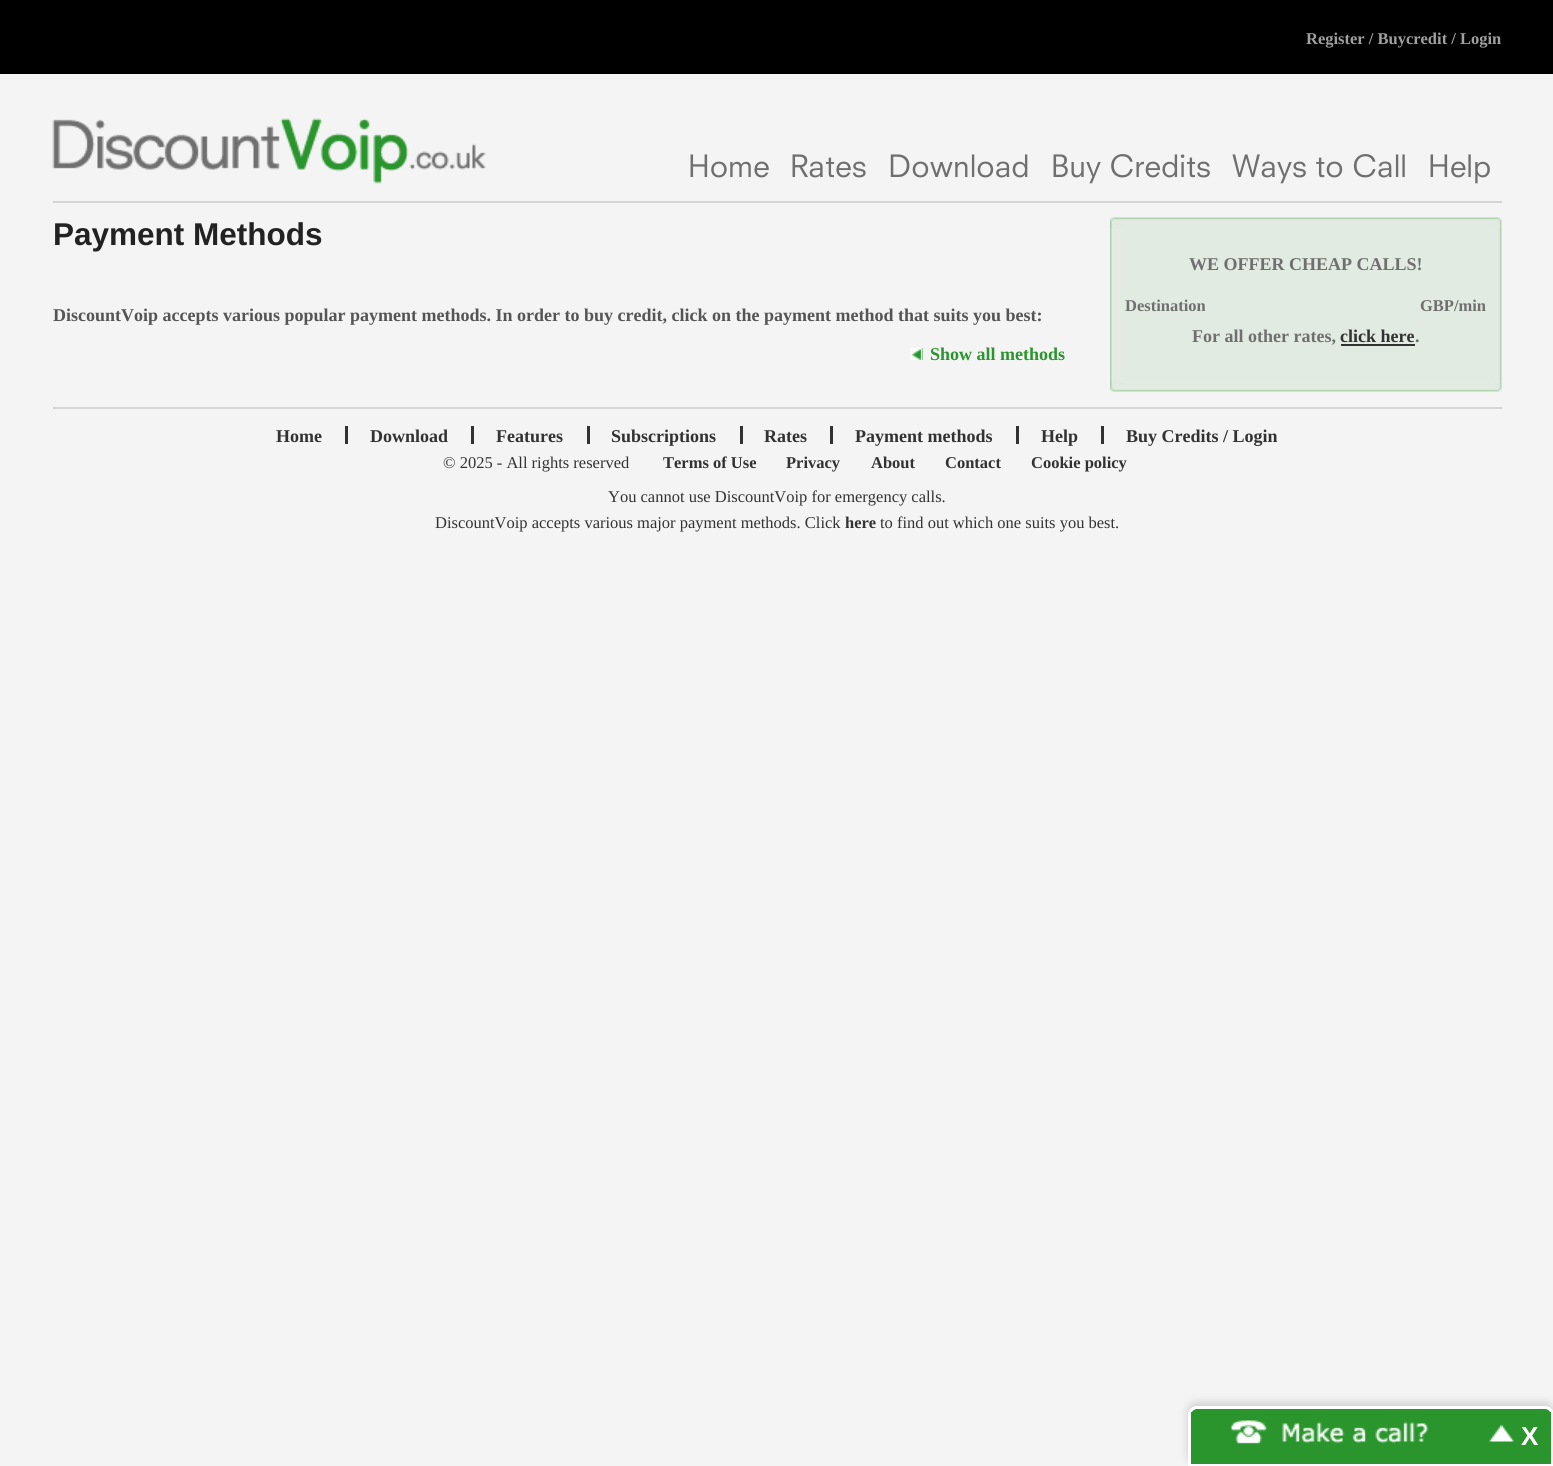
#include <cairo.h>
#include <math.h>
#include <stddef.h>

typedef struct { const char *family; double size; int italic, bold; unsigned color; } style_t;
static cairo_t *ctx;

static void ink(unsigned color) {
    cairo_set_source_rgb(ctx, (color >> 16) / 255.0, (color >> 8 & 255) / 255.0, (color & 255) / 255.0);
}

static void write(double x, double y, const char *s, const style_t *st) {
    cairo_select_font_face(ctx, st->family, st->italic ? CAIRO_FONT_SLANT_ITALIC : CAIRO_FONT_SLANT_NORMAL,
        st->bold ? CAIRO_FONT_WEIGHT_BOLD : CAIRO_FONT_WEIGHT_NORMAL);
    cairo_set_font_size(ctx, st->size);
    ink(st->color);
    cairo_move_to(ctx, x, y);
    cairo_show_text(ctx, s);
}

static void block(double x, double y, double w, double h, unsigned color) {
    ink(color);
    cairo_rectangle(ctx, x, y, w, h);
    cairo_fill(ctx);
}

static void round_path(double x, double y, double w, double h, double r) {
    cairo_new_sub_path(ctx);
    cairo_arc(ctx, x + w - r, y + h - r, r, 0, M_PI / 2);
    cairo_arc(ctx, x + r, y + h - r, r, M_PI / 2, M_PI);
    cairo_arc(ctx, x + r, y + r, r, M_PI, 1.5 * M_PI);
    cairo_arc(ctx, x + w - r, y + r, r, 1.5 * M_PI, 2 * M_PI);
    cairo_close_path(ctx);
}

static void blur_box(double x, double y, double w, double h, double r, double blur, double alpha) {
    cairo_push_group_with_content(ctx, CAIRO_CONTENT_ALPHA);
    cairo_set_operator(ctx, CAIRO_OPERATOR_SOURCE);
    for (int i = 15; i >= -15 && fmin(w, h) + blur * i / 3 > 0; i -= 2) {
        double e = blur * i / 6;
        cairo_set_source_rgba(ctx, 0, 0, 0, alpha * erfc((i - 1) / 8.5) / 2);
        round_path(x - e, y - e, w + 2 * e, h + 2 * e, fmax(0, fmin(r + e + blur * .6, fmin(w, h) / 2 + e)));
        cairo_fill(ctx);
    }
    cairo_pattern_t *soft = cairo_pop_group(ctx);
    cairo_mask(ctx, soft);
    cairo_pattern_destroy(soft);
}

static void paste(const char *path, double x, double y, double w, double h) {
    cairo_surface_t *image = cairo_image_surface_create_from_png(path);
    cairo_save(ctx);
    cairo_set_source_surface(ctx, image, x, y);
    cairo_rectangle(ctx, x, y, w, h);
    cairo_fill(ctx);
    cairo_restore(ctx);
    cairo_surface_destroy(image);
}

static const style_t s1 = {"Liberation Serif", 16.5, 0, 1, 0xa0a0a0};
static const style_t s2 = {"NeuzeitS", 30, 0, 0, 0x6f6f6f};
static const style_t s3 = {"Liberation Sans", 31.5, 0, 1, 0x222222};
static const style_t s4 = {"Liberation Serif", 18, 0, 1, 0x555555};
static const style_t s5 = {"Liberation Serif", 18, 0, 1, 0x29952c};
static const style_t s6 = {"Liberation Serif", 18, 0, 1, 0x6f6f6f};
static const style_t s7 = {"Liberation Serif", 16.5, 0, 1, 0x6f6f6f};
static const style_t s8 = {"Liberation Serif", 18, 0, 1, 0x333232};
static const style_t s9 = {"Liberation Serif", 16.5, 0, 0, 0x333232};
static const style_t s10 = {"Liberation Serif", 16.5, 0, 1, 0x333232};
static const style_t s11 = {"Liberation Sans", 26, 0, 1, 0xffffff};

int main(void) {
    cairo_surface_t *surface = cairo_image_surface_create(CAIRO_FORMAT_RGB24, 1553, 1466);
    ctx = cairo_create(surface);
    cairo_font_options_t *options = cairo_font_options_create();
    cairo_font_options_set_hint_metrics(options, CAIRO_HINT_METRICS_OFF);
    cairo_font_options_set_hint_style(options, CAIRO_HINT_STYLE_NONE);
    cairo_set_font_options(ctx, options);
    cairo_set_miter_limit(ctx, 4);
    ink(0xf4f4f4);
    cairo_paint(ctx);
    block(0, 0, 1553, 74, 0x000000);
    write(1306, 44, "Register / Buycredit / Login", &s1);
    block(53, 201, 1449, 2, 0xd5d5d5);
    paste("pic1.png", 52, 118, 434, 66);
    write(688, 177, "Home", &s2);
    write(790, 177, "Rates", &s2);
    write(888, 177, "Download", &s2);
    write(1051, 177, "Buy Credits", &s2);
    write(1232, 177, "Ways to Call", &s2);
    write(1428, 177, "Help", &s2);
    write(53, 245, "Payment Methods", &s3);
    write(53, 321, "DiscountVoip accepts various popular payment methods. In order to buy credit, click on the payment method that suits you best:", &s4);
    block(911, 348, 12, 12, 0x29952c);
    paste("pic2.png", 910, 348, 13, 12);
    write(930, 360, "Show all methods", &s5);
    paste("pic3.png", 1110, 217, 392, 11);
    paste("pic4.png", 1110, 228, 392, 153);
    write(1189, 270, "WE OFFER CHEAP CALLS!", &s6);
    write(1125, 311, "Destination", &s7);
    write(1420, 311, "GBP/min", &s7);
    write(1192, 342, "For all other rates,", &s6);
    write(1340, 342, "click here", &s8);
    write(1415, 342, ".", &s6);
    block(1341, 344, 74, 2, 0x333232);
    paste("pic5.png", 1110, 381, 392, 11);
    block(53, 407, 1449, 2, 0xd5d5d5);
    write(276, 442, "Home", &s8);
    block(345, 426, 3, 18, 0x333232);
    write(370, 442, "Download", &s8);
    block(471, 426, 3, 18, 0x333232);
    write(496, 442, "Features", &s8);
    block(587, 426, 3, 18, 0x333232);
    write(611, 442, "Subscriptions", &s8);
    block(740, 426, 3, 18, 0x333232);
    write(764, 442, "Rates", &s8);
    block(830, 426, 3, 18, 0x333232);
    write(855, 442, "Payment methods", &s8);
    block(1016, 426, 3, 18, 0x333232);
    write(1041, 442, "Help", &s8);
    block(1101, 426, 3, 18, 0x333232);
    write(1126, 442, "Buy Credits / Login", &s8);
    write(443, 468, "© 2025 - All rights reserved", &s9);
    write(663, 468, "Terms of Use", &s10);
    write(786, 468, "Privacy", &s10);
    write(871, 468, "About", &s10);
    write(945, 468, "Contact", &s10);
    write(1031, 468, "Cookie policy", &s10);
    write(608, 502, "You cannot use DiscountVoip for emergency calls.", &s9);
    write(435, 528, "DiscountVoip accepts various major payment methods. Click", &s9);
    write(845, 528, "here", &s10);
    write(880, 528, "to find out which one suits you best.", &s9);
    ink(0xcccccc);
    blur_box(1188, 1403, 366, 61, 9, 4.5, 1);
    ink(0x29952c);
    cairo_new_path(ctx);
    cairo_move_to(ctx, 1197, 1407.5);
    cairo_line_to(ctx, 1545, 1407.5);
    cairo_curve_to(ctx, 1549, 1407.5, 1552.5, 1411, 1552.5, 1415);
    cairo_line_to(ctx, 1552.5, 1465.5);
    cairo_line_to(ctx, 1189.5, 1465.5);
    cairo_line_to(ctx, 1189.5, 1415);
    cairo_curve_to(ctx, 1189.5, 1411, 1193, 1407.5, 1197, 1407.5);
    cairo_close_path(ctx);
    cairo_fill_preserve(ctx);
    ink(0xffffff);
    cairo_set_line_width(ctx, 3);
    cairo_stroke(ctx);
    block(1191, 1412, 1, 3, 0x29952c);
    paste("pic6.png", 1231, 1420, 283, 24);
    block(1550, 1412, 1, 3, 0x29952c);
    write(1521, 1445, "X", &s11);
    cairo_surface_write_to_png(surface, "screenshot.png");
    cairo_font_options_destroy(options);
    cairo_destroy(ctx);
    cairo_surface_destroy(surface);
    return 0;
}
